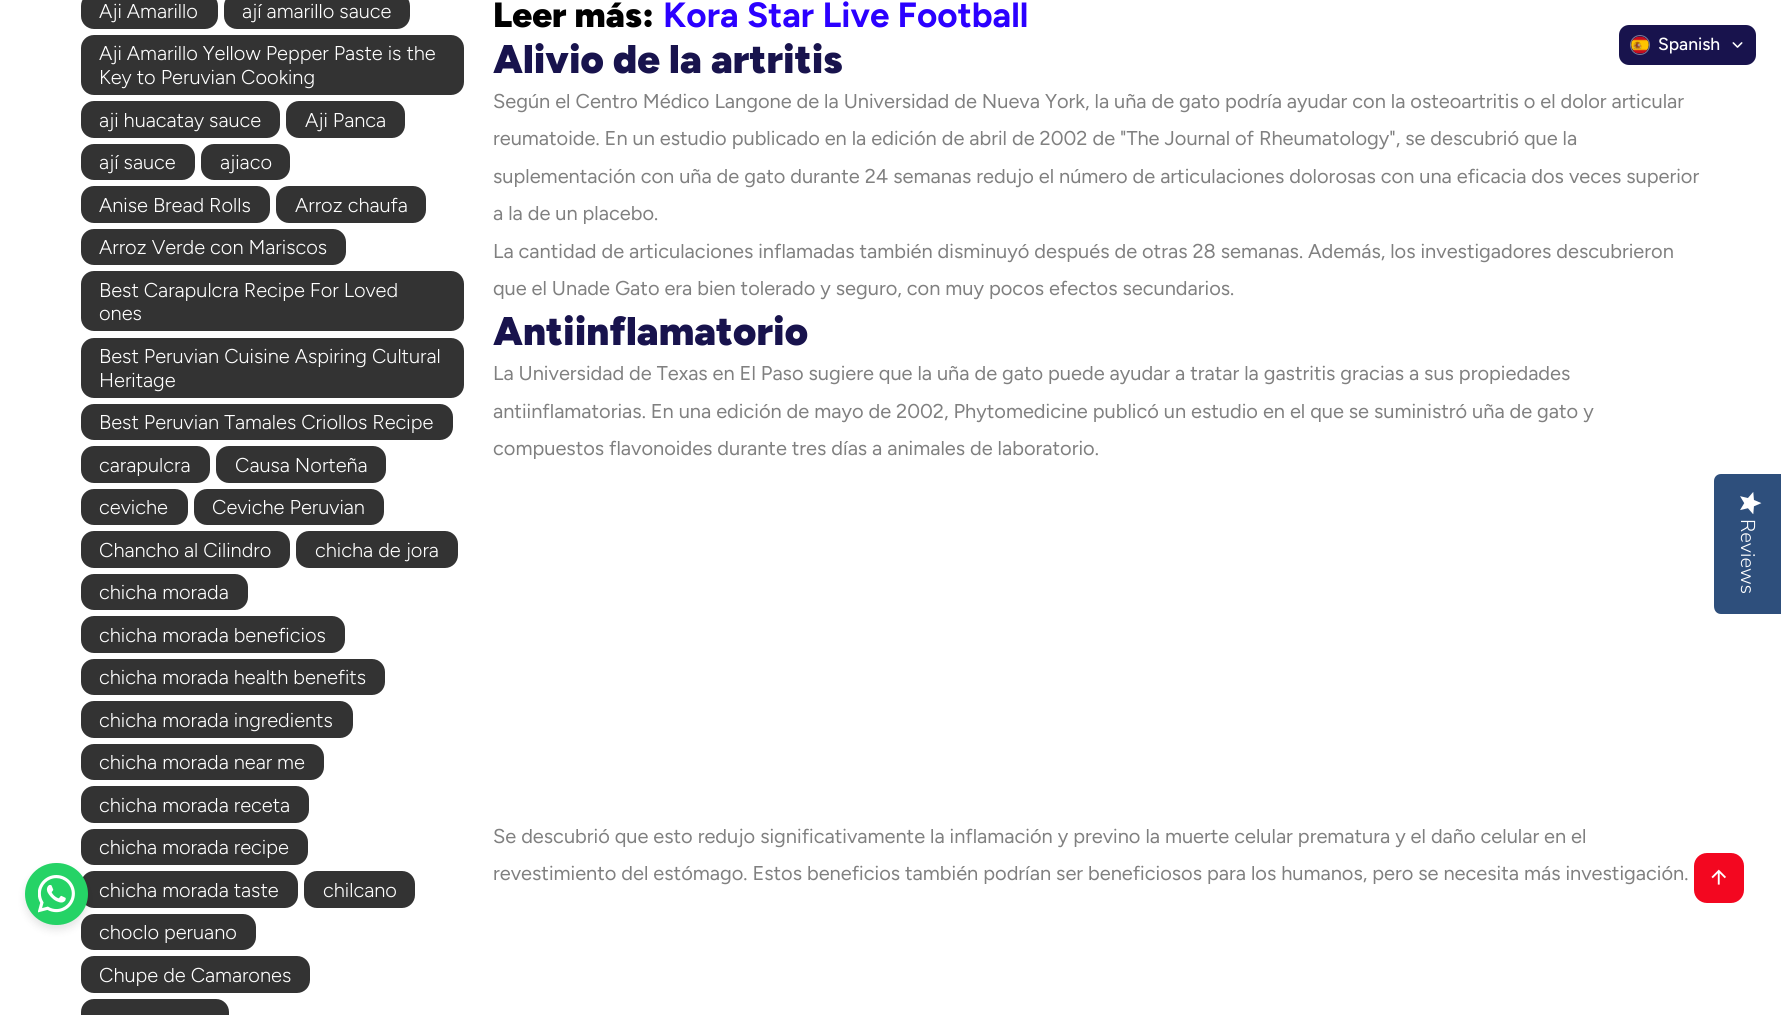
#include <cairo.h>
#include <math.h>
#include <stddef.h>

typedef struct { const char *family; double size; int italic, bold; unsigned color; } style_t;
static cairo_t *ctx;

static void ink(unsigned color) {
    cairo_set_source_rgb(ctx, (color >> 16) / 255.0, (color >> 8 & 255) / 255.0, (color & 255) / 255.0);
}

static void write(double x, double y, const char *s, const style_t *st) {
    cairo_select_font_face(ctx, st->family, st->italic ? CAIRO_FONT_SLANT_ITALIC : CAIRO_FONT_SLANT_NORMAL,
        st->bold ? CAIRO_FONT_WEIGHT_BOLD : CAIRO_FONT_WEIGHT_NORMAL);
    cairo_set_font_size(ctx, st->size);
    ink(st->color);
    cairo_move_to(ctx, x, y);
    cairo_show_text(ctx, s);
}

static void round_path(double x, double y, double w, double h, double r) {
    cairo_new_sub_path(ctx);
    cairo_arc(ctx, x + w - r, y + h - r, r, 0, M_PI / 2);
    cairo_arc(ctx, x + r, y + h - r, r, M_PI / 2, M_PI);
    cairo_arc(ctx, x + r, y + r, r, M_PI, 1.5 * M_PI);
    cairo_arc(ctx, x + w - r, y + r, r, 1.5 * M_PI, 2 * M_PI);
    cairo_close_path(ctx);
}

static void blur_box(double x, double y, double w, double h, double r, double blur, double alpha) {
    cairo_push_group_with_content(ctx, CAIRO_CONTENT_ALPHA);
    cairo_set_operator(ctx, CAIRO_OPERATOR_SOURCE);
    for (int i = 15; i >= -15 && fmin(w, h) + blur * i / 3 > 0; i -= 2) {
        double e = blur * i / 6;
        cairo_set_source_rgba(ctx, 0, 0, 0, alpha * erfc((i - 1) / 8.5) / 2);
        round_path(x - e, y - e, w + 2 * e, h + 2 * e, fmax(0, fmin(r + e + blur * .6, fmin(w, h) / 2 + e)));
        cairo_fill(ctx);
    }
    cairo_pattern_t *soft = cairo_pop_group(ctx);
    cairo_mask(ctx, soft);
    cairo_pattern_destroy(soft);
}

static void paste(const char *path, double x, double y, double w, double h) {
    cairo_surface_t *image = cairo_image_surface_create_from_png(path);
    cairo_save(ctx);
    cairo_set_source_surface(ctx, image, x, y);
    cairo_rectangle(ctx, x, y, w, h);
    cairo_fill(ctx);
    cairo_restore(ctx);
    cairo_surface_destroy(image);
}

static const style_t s1 = {"Figtree Light", 20, 0, 0, 0xffffff};
static const style_t s2 = {"Figtree Black", 35, 0, 0, 0x000000};
static const style_t s3 = {"Figtree", 35, 0, 1, 0x2b00ff};
static const style_t s4 = {"Figtree Black", 40, 0, 0, 0x18134d};
static const style_t s5 = {"Figtree", 20, 0, 0, 0x808080};
static const style_t s6 = {"Figtree Medium", 17.5, 0, 0, 0xffffff};
static const style_t s7 = {"Nunito Sans Light", 20, 0, 0, 0xffffff};

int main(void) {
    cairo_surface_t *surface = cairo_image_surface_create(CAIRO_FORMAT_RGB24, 1781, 1015);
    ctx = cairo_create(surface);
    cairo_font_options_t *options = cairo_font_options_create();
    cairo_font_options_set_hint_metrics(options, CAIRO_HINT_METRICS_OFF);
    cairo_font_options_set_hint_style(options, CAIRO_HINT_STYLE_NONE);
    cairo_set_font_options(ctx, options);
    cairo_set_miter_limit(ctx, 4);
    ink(0xffffff);
    cairo_paint(ctx);
    ink(0x333333);
    round_path(81, -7, 137, 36, 13);
    cairo_fill(ctx);
    write(99, 18, "Aji Amarillo", &s1);
    ink(0x333333);
    round_path(224, -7, 186, 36, 13);
    cairo_fill(ctx);
    write(242, 18, "ají amarillo sauce", &s1);
    ink(0x333333);
    round_path(81, 35, 383, 60, 13);
    cairo_fill(ctx);
    write(99, 60, "Aji Amarillo Yellow Pepper Paste is the", &s1);
    write(99, 84, "Key to Peruvian Cooking", &s1);
    ink(0x333333);
    round_path(81, 101, 199, 37, 13);
    cairo_fill(ctx);
    write(99, 127, "aji huacatay sauce", &s1);
    ink(0x333333);
    round_path(286, 101, 119, 37, 13);
    cairo_fill(ctx);
    write(305, 127, "Aji Panca", &s1);
    ink(0x333333);
    round_path(81, 144, 114, 36, 13);
    cairo_fill(ctx);
    write(99, 169, "ají sauce", &s1);
    ink(0x333333);
    round_path(201, 144, 89, 36, 13);
    cairo_fill(ctx);
    write(220, 169, "ajiaco", &s1);
    ink(0x333333);
    round_path(81, 186, 189, 37, 13);
    cairo_fill(ctx);
    write(99, 212, "Anise Bread Rolls", &s1);
    ink(0x333333);
    round_path(276, 186, 150, 37, 13);
    cairo_fill(ctx);
    write(295, 212, "Arroz chaufa", &s1);
    ink(0x333333);
    round_path(81, 229, 265, 36, 13);
    cairo_fill(ctx);
    write(99, 254, "Arroz Verde con Mariscos", &s1);
    ink(0x333333);
    round_path(81, 271, 383, 60, 13);
    cairo_fill(ctx);
    write(99, 297, "Best Carapulcra Recipe For Loved", &s1);
    write(99, 320, "ones", &s1);
    ink(0x333333);
    round_path(81, 338, 383, 60, 13);
    cairo_fill(ctx);
    write(99, 363, "Best Peruvian Cuisine Aspiring Cultural", &s1);
    write(99, 387, "Heritage", &s1);
    ink(0x333333);
    round_path(81, 404, 372, 36, 13);
    cairo_fill(ctx);
    write(99, 429, "Best Peruvian Tamales Criollos Recipe", &s1);
    ink(0x333333);
    round_path(81, 446, 129, 37, 13);
    cairo_fill(ctx);
    write(99, 472, "carapulcra", &s1);
    ink(0x333333);
    round_path(216, 446, 170, 37, 13);
    cairo_fill(ctx);
    write(235, 472, "Causa Norteña", &s1);
    ink(0x333333);
    round_path(81, 489, 107, 36, 13);
    cairo_fill(ctx);
    write(99, 514, "ceviche", &s1);
    ink(0x333333);
    round_path(194, 489, 190, 36, 13);
    cairo_fill(ctx);
    write(212, 514, "Ceviche Peruvian", &s1);
    ink(0x333333);
    round_path(81, 531, 209, 37, 13);
    cairo_fill(ctx);
    write(99, 557, "Chancho al Cilindro", &s1);
    ink(0x333333);
    round_path(296, 531, 162, 37, 13);
    cairo_fill(ctx);
    write(315, 557, "chicha de jora", &s1);
    ink(0x333333);
    round_path(81, 574, 167, 36, 13);
    cairo_fill(ctx);
    write(99, 599, "chicha morada", &s1);
    ink(0x333333);
    round_path(81, 616, 264, 37, 13);
    cairo_fill(ctx);
    write(99, 642, "chicha morada beneficios", &s1);
    ink(0x333333);
    round_path(81, 659, 304, 36, 13);
    cairo_fill(ctx);
    write(99, 684, "chicha morada health benefits", &s1);
    ink(0x333333);
    round_path(81, 701, 272, 37, 13);
    cairo_fill(ctx);
    write(99, 727, "chicha morada ingredients", &s1);
    ink(0x333333);
    round_path(81, 744, 243, 36, 13);
    cairo_fill(ctx);
    write(99, 769, "chicha morada near me", &s1);
    ink(0x333333);
    round_path(81, 786, 228, 37, 13);
    cairo_fill(ctx);
    write(99, 812, "chicha morada receta", &s1);
    ink(0x333333);
    round_path(81, 829, 227, 36, 13);
    cairo_fill(ctx);
    write(99, 854, "chicha morada recipe", &s1);
    ink(0x333333);
    round_path(81, 871, 217, 37, 13);
    cairo_fill(ctx);
    write(99, 897, "chicha morada taste", &s1);
    ink(0x333333);
    round_path(304, 871, 111, 37, 13);
    cairo_fill(ctx);
    write(323, 897, "chilcano", &s1);
    ink(0x333333);
    round_path(81, 914, 175, 36, 13);
    cairo_fill(ctx);
    write(99, 939, "choclo peruano", &s1);
    ink(0x333333);
    round_path(81, 956, 229, 37, 13);
    cairo_fill(ctx);
    write(99, 982, "Chupe de Camarones", &s1);
    ink(0x333333);
    round_path(81, 999, 148, 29, 13);
    cairo_fill(ctx);
    write(493, 27, "Leer más:", &s2);
    write(663, 27, "Kora Star Live Football", &s3);
    write(493, 73, "Alivio de la artritis", &s4);
    write(493, 108, "Según el Centro Médico Langone de la Universidad de Nueva York, la uña de gato podría ayudar con la osteoartritis o el dolor articular", &s5);
    write(493, 145, "reumatoide. En un estudio publicado en la edición de abril de 2002 de \"The Journal of Rheumatology\", se descubrió que la", &s5);
    write(493, 183, "suplementación con uña de gato durante 24 semanas redujo el número de articulaciones dolorosas con una eficacia dos veces superior", &s5);
    write(493, 220, "a la de un placebo.", &s5);
    write(493, 258, "La cantidad de articulaciones inflamadas también disminuyó después de otras 28 semanas. Además, los investigadores descubrieron", &s5);
    write(493, 295, "que el Unade Gato era bien tolerado y seguro, con muy pocos efectos secundarios.", &s5);
    write(493, 345, "Antiinflamatorio", &s4);
    write(493, 380, "La Universidad de Texas en El Paso sugiere que la uña de gato puede ayudar a tratar la gastritis gracias a sus propiedades", &s5);
    write(493, 418, "antiinflamatorias. En una edición de mayo de 2002, Phytomedicine publicó un estudio en el que se suministró uña de gato y", &s5);
    write(493, 455, "compuestos flavonoides durante tres días a animales de laboratorio.", &s5);
    write(493, 843, "Se descubrió que esto redujo significativamente la inflamación y previno la muerte celular prematura y el daño celular en el", &s5);
    write(493, 880, "revestimiento del estómago. Estos beneficios también podrían ser beneficiosos para los humanos, pero se necesita más investigación.", &s5);
    ink(0x18134d);
    round_path(1619, 25, 137, 40, 10);
    cairo_fill(ctx);
    cairo_arc(ctx, 1640, 45, 9.5, 0, 2 * M_PI);
    ink(0x7d7b99);
    cairo_set_line_width(ctx, 1);
    cairo_stroke(ctx);
    paste("pic1.png", 1631, 36, 18, 18);
    write(1658, 50, "Spanish", &s6);
    paste("pic2.png", 1732, 42, 11, 6);
    ink(0x2e4f7c);
    cairo_new_path(ctx);
    cairo_move_to(ctx, 1781, 474);
    cairo_line_to(ctx, 1781, 614);
    cairo_line_to(ctx, 1721, 614);
    cairo_curve_to(ctx, 1717, 614, 1714, 611, 1714, 606);
    cairo_line_to(ctx, 1714, 481);
    cairo_curve_to(ctx, 1714, 477, 1717, 474, 1721, 474);
    cairo_close_path(ctx);
    cairo_fill(ctx);
    paste("pic3.png", 1740, 492, 22, 23);
    cairo_save(ctx);
    cairo_translate(ctx, 1741, 519);
    cairo_rotate(ctx, 90 * M_PI / 180);
    write(0, 0, "Reviews", &s7);
    cairo_restore(ctx);
    ink(0x000000);
    blur_box(25, 868, 63, 62, 31, 4, 0.1);
    ink(0x25d366);
    round_path(25, 863, 63, 62, 31);
    cairo_fill(ctx);
    paste("pic4.png", 38, 875, 37, 38);
    ink(0xf30720);
    round_path(1694, 853, 50, 50, 13);
    cairo_fill(ctx);
    paste("pic5.png", 1711, 869, 15, 16);
    cairo_surface_write_to_png(surface, "screenshot.png");
    cairo_font_options_destroy(options);
    cairo_destroy(ctx);
    cairo_surface_destroy(surface);
    return 0;
}
